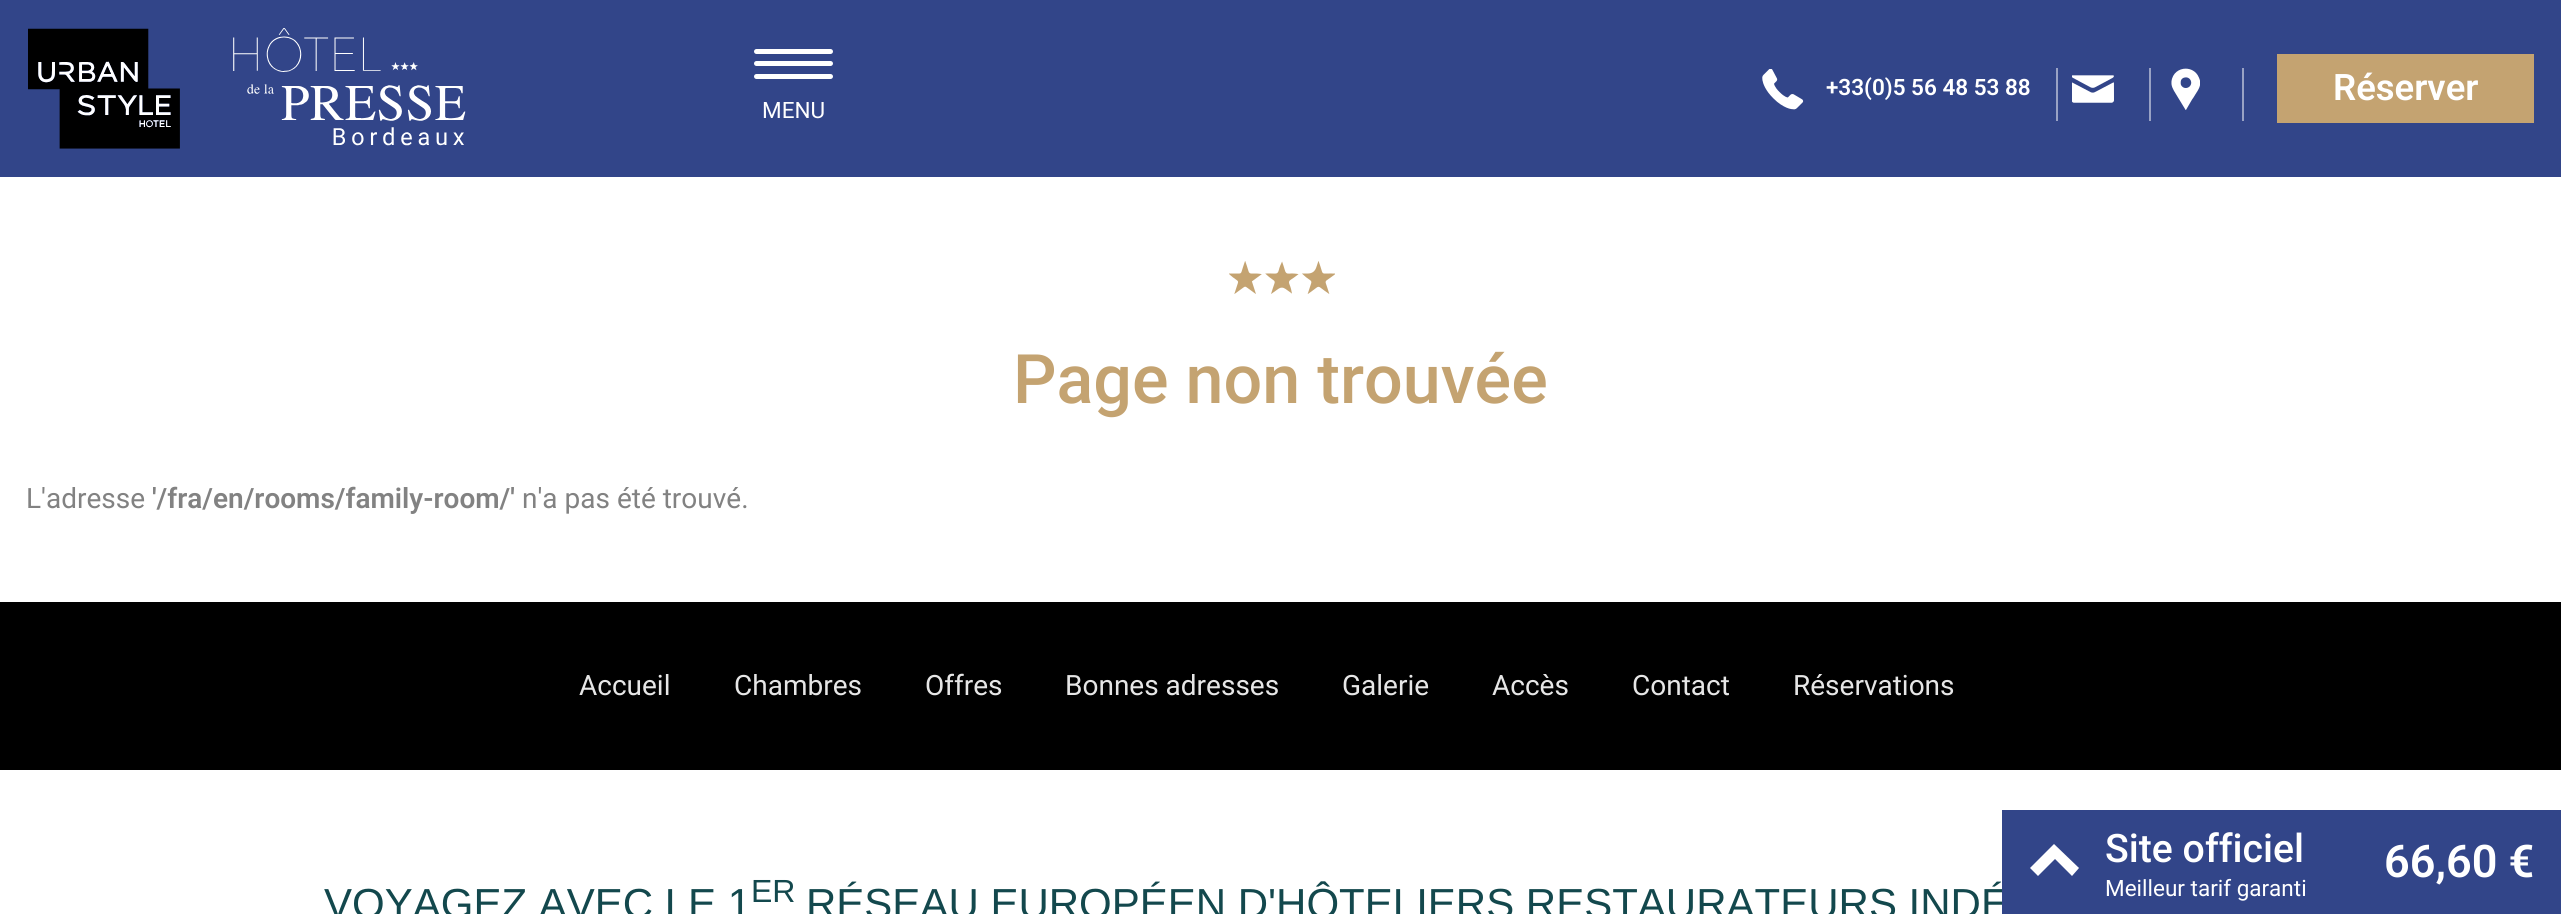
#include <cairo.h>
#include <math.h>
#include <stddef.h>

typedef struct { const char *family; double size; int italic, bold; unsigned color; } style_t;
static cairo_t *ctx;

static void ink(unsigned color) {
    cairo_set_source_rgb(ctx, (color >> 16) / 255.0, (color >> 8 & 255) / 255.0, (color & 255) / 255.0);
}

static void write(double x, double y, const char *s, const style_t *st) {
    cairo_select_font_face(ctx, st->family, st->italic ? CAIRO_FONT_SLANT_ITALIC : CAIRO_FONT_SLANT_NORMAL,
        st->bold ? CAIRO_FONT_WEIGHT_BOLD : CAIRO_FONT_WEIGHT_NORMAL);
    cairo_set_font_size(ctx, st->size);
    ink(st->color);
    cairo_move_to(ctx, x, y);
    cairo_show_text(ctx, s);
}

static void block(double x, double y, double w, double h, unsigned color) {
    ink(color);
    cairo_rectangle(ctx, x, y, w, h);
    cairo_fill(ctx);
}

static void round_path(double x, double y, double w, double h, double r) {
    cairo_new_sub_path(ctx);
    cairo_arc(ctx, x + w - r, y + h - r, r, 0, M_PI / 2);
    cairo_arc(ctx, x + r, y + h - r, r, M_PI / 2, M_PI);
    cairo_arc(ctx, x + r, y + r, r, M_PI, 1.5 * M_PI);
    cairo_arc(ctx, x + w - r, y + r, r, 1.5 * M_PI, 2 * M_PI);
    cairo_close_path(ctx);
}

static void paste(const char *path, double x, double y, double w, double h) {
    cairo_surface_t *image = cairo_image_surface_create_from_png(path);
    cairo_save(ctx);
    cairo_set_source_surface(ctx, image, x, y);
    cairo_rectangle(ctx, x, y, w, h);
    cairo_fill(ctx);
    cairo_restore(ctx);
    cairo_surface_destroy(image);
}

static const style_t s1 = {"Roboto SemiBold", 22.5, 0, 0, 0xffffff};
static const style_t s2 = {"Roboto SemiBold", 36.5, 0, 0, 0xffffff};
static const style_t s3 = {"Roboto", 22.5, 0, 0, 0xffffff};
static const style_t s4 = {"Roboto Medium", 68.25, 0, 0, 0xc4a371};
static const style_t s5 = {"Roboto", 28, 0, 0, 0x828282};
static const style_t s6 = {"Roboto SemiBold", 28, 0, 0, 0x828282};
static const style_t s7 = {"Roboto", 28, 0, 0, 0xe6e6e6};
static const style_t s8 = {"Liberation Sans", 42, 0, 0, 0x13484d};
static const style_t s9 = {"Liberation Sans", 32, 0, 0, 0x13484d};
static const style_t s10 = {"Roboto Medium", 39.25, 0, 0, 0xffffff};
static const style_t s11 = {"Roboto SemiBold", 45, 0, 0, 0xffffff};

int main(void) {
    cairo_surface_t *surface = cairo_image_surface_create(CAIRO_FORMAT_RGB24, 2561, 914);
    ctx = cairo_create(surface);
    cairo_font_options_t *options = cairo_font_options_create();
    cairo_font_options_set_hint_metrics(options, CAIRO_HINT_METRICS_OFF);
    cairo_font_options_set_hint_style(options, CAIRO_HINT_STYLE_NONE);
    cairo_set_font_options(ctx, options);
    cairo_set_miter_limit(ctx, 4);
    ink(0xffffff);
    cairo_paint(ctx);
    block(0, 0, 2561, 177, 0x324589);
    paste("pic1.png", 28, 28, 438, 121);
    paste("pic2.png", 1762, 69, 42, 41);
    write(1826, 95, "+33(0)5 56 48 53 88", &s1);
    block(2056, 68, 2, 53, 0x99a2c4);
    paste("pic3.png", 2072, 75, 42, 28);
    block(2149, 68, 2, 53, 0x99a2c4);
    paste("pic4.png", 2171, 68, 29, 42);
    block(2242, 68, 2, 53, 0x99a2c4);
    block(2277, 54, 257, 69, 0xc4a371);
    write(2333, 100, "Réserver", &s2);
    round_path(754, 74, 79, 5, 2.5);
    cairo_fill(ctx);
    round_path(754, 49, 79, 5, 2.5);
    cairo_fill(ctx);
    round_path(754, 61, 79, 5, 2.5);
    cairo_fill(ctx);
    write(762, 118, "MENU", &s3);
    paste("pic5.png", 1229, 261, 106, 33);
    write(1013, 403, "Page non trouvée", &s4);
    write(26, 508, "L'adresse", &s5);
    write(152, 508, "'/fra/en/rooms/family-room/'", &s6);
    write(522, 508, "n'a pas été trouvé.", &s5);
    block(0, 602, 2561, 168, 0x000000);
    write(579, 695, "Accueil", &s7);
    write(734, 695, "Chambres", &s7);
    write(925, 695, "Offres", &s7);
    write(1065, 695, "Bonnes adresses", &s7);
    write(1342, 695, "Galerie", &s7);
    write(1492, 695, "Accès", &s7);
    write(1632, 695, "Contact", &s7);
    write(1793, 695, "Réservations", &s7);
    write(324, 918, "VOYAGEZ AVEC LE 1", &s8);
    write(751, 902, "ER", &s9);
    write(806, 918, "RÉSEAU EUROPÉEN D'HÔTELIERS RESTAURATEURS INDÉ", &s8);
    block(2002, 810, 559, 104, 0x324589);
    ink(0xffffff);
    cairo_new_path(ctx);
    cairo_move_to(ctx, 2054, 844);
    cairo_line_to(ctx, 2079, 868);
    cairo_line_to(ctx, 2072, 876);
    cairo_line_to(ctx, 2055, 859);
    cairo_line_to(ctx, 2038, 876);
    cairo_line_to(ctx, 2030, 868);
    cairo_close_path(ctx);
    cairo_fill(ctx);
    write(2105, 862, "Site officiel", &s10);
    write(2105, 896, "Meilleur tarif garanti", &s3);
    write(2384, 877, "66,60 €", &s11);
    cairo_surface_write_to_png(surface, "screenshot.png");
    cairo_font_options_destroy(options);
    cairo_destroy(ctx);
    cairo_surface_destroy(surface);
    return 0;
}
